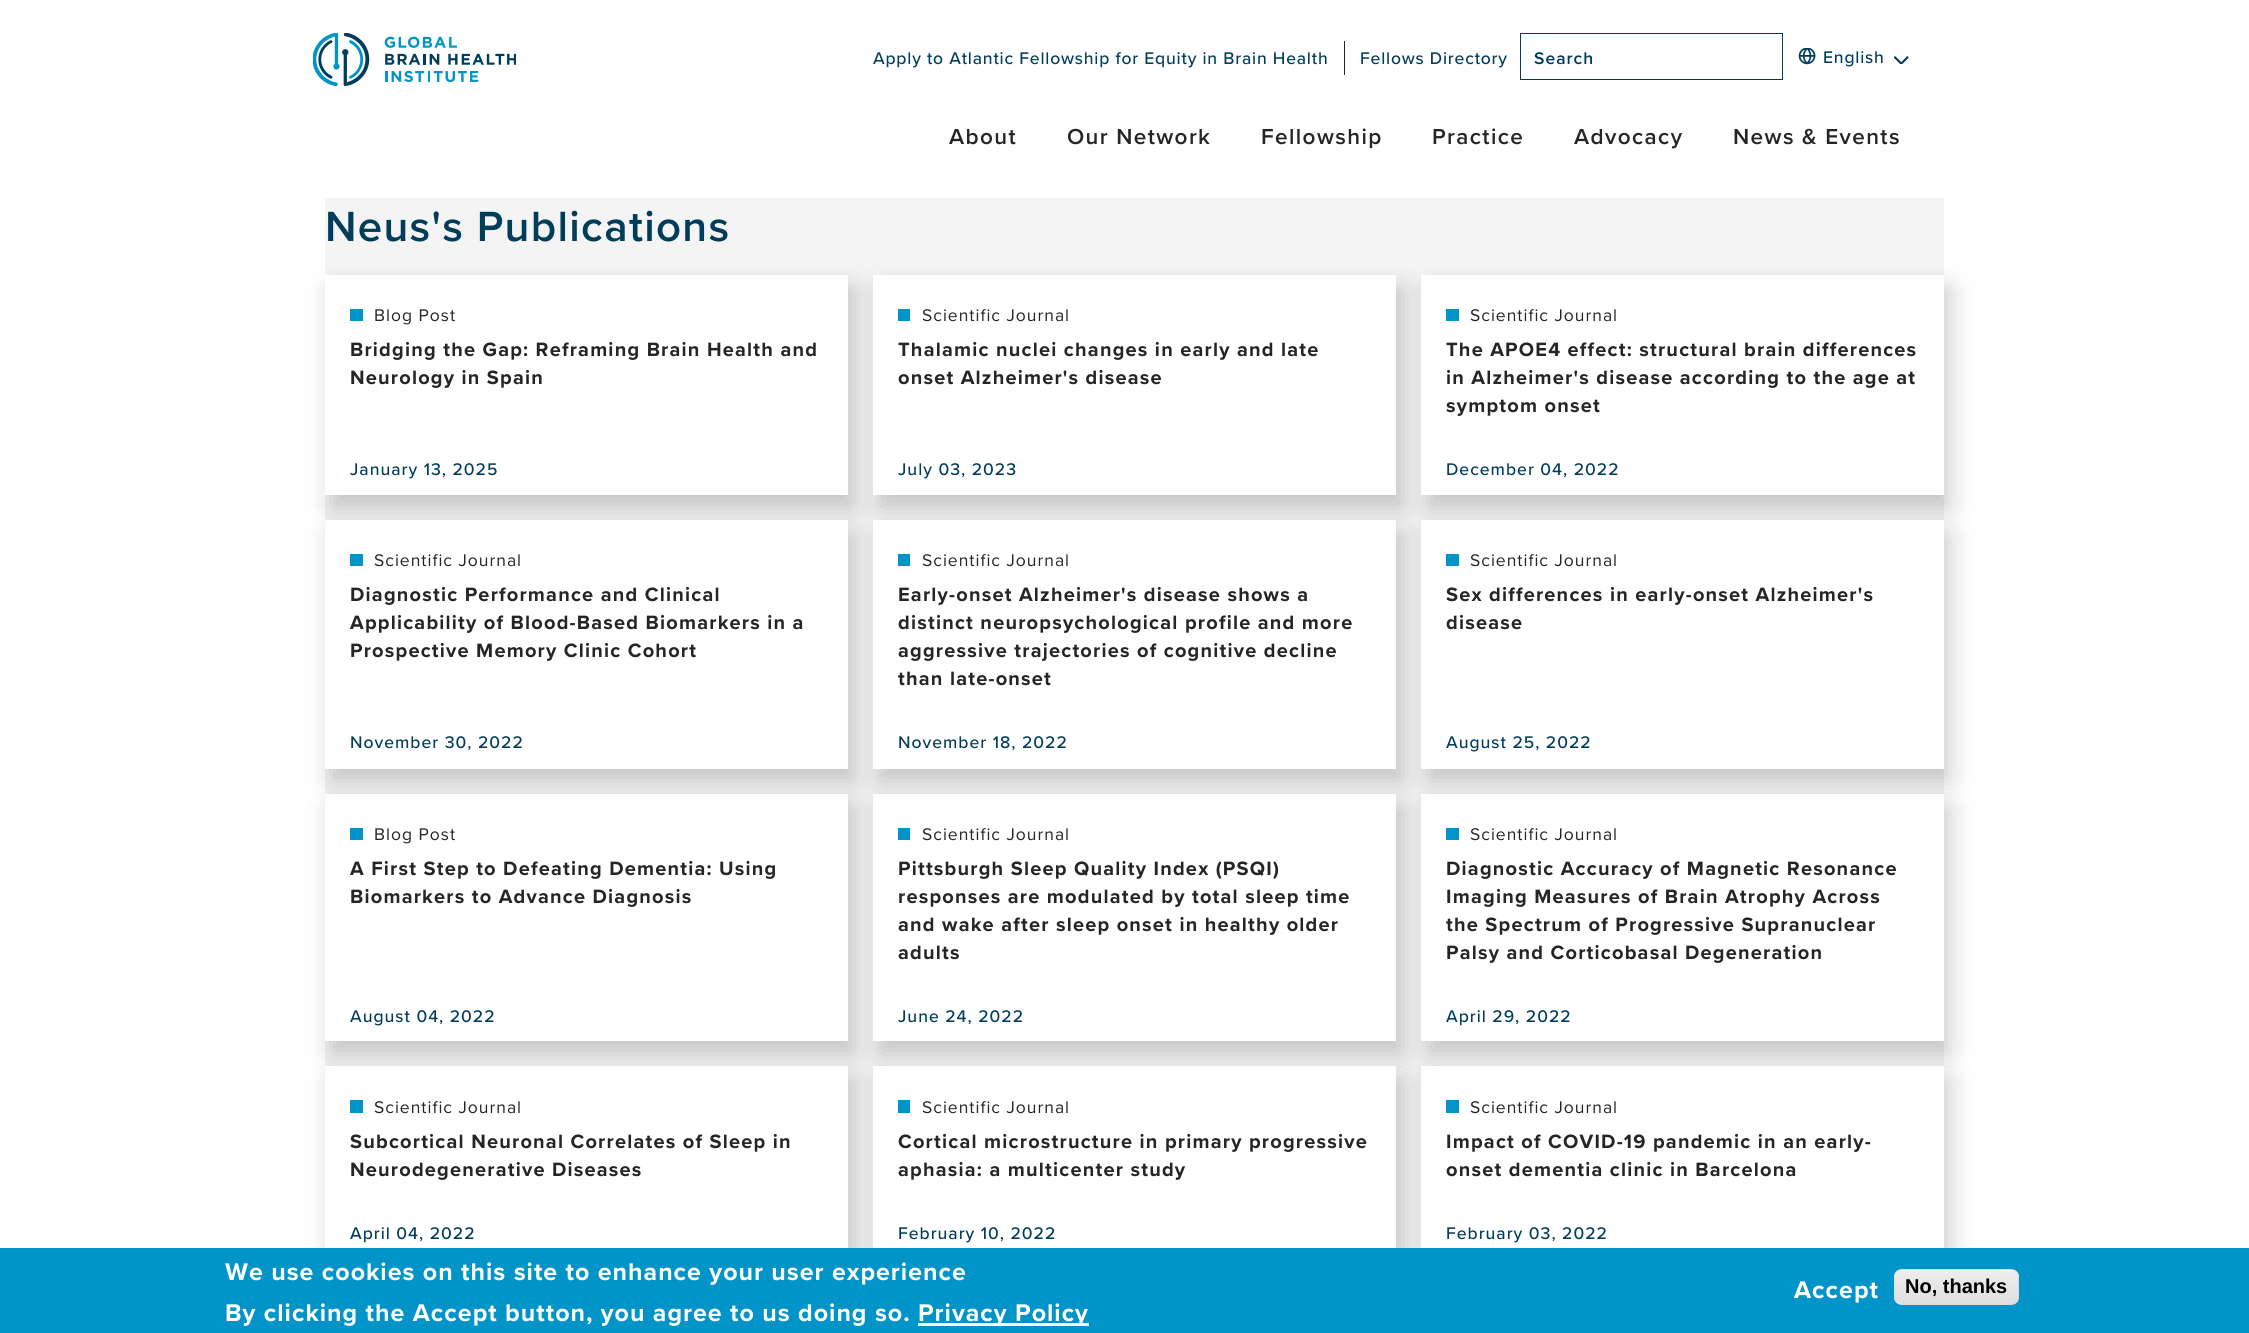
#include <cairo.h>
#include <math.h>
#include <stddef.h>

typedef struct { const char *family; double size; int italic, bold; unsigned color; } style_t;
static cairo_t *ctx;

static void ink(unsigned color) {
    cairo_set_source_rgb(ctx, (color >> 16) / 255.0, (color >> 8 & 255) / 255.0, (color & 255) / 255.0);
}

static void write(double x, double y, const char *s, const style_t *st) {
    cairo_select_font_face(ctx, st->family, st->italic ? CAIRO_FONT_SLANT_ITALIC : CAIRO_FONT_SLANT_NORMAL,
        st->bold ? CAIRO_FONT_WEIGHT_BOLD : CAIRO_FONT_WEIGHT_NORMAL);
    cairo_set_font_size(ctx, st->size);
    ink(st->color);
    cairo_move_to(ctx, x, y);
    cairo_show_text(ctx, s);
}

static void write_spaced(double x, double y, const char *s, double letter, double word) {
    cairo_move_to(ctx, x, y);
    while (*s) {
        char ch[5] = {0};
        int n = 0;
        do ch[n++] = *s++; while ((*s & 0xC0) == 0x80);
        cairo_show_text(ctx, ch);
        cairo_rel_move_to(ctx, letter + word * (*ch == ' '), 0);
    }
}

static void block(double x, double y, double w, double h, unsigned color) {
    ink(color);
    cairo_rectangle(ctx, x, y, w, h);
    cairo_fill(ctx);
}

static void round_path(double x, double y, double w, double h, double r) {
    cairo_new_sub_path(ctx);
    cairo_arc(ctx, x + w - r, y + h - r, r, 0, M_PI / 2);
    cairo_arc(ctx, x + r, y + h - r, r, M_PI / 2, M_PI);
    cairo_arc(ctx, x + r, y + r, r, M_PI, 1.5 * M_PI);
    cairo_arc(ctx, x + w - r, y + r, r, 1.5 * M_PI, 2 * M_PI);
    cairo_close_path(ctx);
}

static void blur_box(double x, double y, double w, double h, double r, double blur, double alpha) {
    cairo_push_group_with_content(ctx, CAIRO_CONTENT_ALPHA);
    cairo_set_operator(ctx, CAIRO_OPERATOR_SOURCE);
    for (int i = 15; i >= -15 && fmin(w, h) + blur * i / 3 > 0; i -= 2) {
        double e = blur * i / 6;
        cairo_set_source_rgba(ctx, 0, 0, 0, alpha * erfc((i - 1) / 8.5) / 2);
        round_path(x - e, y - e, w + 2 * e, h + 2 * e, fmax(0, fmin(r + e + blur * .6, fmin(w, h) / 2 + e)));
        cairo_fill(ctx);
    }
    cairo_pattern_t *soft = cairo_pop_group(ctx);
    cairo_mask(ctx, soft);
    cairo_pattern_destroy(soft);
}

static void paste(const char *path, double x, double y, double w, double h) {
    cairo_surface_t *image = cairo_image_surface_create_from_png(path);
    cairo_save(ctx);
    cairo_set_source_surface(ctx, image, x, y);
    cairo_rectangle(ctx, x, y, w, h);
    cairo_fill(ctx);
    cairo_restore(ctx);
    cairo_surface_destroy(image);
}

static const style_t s1 = {"Liberation Sans", 20, 0, 1, 0x000000};

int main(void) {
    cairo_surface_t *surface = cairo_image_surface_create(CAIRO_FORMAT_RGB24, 2249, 1333);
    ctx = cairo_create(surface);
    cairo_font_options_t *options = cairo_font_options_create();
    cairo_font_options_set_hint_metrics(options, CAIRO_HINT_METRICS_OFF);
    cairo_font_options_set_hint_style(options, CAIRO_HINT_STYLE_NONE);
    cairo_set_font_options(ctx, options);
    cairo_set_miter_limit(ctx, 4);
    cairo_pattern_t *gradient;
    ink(0xffffff);
    cairo_paint(ctx);
    paste("pic1.png", 313, 33, 203, 53);
    cairo_select_font_face(ctx, "Proxima Nova Medium", CAIRO_FONT_SLANT_NORMAL, CAIRO_FONT_WEIGHT_NORMAL);
    cairo_set_font_size(ctx, 17.5);
    ink(0x003d5b);
    write_spaced(873, 64, "Apply to Atlantic Fellowship for Equity in Brain Health", 0.8, 0);
    block(1344, 41, 1, 34, 0x252525);
    ink(0x003d5b);
    write_spaced(1360, 64, "Fellows Directory", 0.8, 0);
    cairo_rectangle(ctx, 1520.5, 33.5, 262, 46);
    cairo_set_line_width(ctx, 1);
    cairo_stroke(ctx);
    cairo_select_font_face(ctx, "Proxima Nova SemiBold", CAIRO_FONT_SLANT_NORMAL, CAIRO_FONT_WEIGHT_NORMAL);
    write_spaced(1534, 64, "Search", 1, 0);
    paste("pic2.png", 1798, 48, 18, 17);
    cairo_select_font_face(ctx, "Proxima Nova Medium", CAIRO_FONT_SLANT_NORMAL, CAIRO_FONT_WEIGHT_NORMAL);
    write_spaced(1823, 63, "English", 0.8, 0);
    paste("pic3.png", 1894, 56, 15, 8);
    cairo_select_font_face(ctx, "Proxima Nova SemiBold", CAIRO_FONT_SLANT_NORMAL, CAIRO_FONT_WEIGHT_NORMAL);
    cairo_set_font_size(ctx, 22.5);
    ink(0x252525);
    write_spaced(949, 144, "About", 1.4, 0);
    write_spaced(1067, 144, "Our Network", 1.4, 0);
    write_spaced(1261, 144, "Fellowship", 1.4, 0);
    write_spaced(1432, 144, "Practice", 1.4, 0);
    write_spaced(1574, 144, "Advocacy", 1.4, 0);
    write_spaced(1733, 144, "News & Events", 1.4, 0);
    block(325, 198, 1619, 1050, 0xf4f4f4);
    cairo_set_font_size(ctx, 43.75);
    ink(0x003d5b);
    write_spaced(325, 241, "Neus's Publications", 1.3, 0);
    ink(0x000000);
    blur_box(331, 288, 523, 220, 0, 12.5, 0.2);
    block(325, 275, 523, 220, 0xffffff);
    block(350, 309, 13, 12, 0x0094c9);
    cairo_select_font_face(ctx, "Proxima Nova", CAIRO_FONT_SLANT_NORMAL, CAIRO_FONT_WEIGHT_NORMAL);
    cairo_set_font_size(ctx, 17.5);
    ink(0x252525);
    write_spaced(374, 321, "Blog Post", 1, 0);
    cairo_select_font_face(ctx, "Proxima Nova", CAIRO_FONT_SLANT_NORMAL, CAIRO_FONT_WEIGHT_BOLD);
    cairo_set_font_size(ctx, 20);
    write_spaced(350, 356, "Bridging the Gap: Reframing Brain Health and", 1.2, 0);
    write_spaced(350, 384, "Neurology in Spain", 1.2, 0);
    cairo_select_font_face(ctx, "Proxima Nova Medium", CAIRO_FONT_SLANT_NORMAL, CAIRO_FONT_WEIGHT_NORMAL);
    cairo_set_font_size(ctx, 17.5);
    ink(0x003d5b);
    write_spaced(350, 475, "January 13, 2025", 1, 0);
    ink(0x000000);
    blur_box(879, 288, 524, 220, 0, 12.5, 0.2);
    block(873, 275, 523, 220, 0xffffff);
    block(898, 309, 12, 12, 0x0094c9);
    cairo_select_font_face(ctx, "Proxima Nova", CAIRO_FONT_SLANT_NORMAL, CAIRO_FONT_WEIGHT_NORMAL);
    ink(0x252525);
    write_spaced(922, 321, "Scientific Journal", 1, 0);
    cairo_select_font_face(ctx, "Proxima Nova", CAIRO_FONT_SLANT_NORMAL, CAIRO_FONT_WEIGHT_BOLD);
    cairo_set_font_size(ctx, 20);
    write_spaced(898, 356, "Thalamic nuclei changes in early and late", 1.2, 0);
    write_spaced(898, 384, "onset Alzheimer's disease", 1.2, 0);
    cairo_select_font_face(ctx, "Proxima Nova Medium", CAIRO_FONT_SLANT_NORMAL, CAIRO_FONT_WEIGHT_NORMAL);
    cairo_set_font_size(ctx, 17.5);
    ink(0x003d5b);
    write_spaced(898, 475, "July 03, 2023", 1, 0);
    ink(0x000000);
    blur_box(1428, 288, 522, 220, 0, 12.5, 0.2);
    block(1421, 275, 523, 220, 0xffffff);
    block(1446, 309, 13, 12, 0x0094c9);
    cairo_select_font_face(ctx, "Proxima Nova", CAIRO_FONT_SLANT_NORMAL, CAIRO_FONT_WEIGHT_NORMAL);
    ink(0x252525);
    write_spaced(1470, 321, "Scientific Journal", 1, 0);
    cairo_select_font_face(ctx, "Proxima Nova", CAIRO_FONT_SLANT_NORMAL, CAIRO_FONT_WEIGHT_BOLD);
    cairo_set_font_size(ctx, 20);
    write_spaced(1446, 356, "The APOE4 effect: structural brain differences", 1.2, 0);
    write_spaced(1446, 384, "in Alzheimer's disease according to the age at", 1.2, 0);
    write_spaced(1446, 412, "symptom onset", 1.2, 0);
    cairo_select_font_face(ctx, "Proxima Nova Medium", CAIRO_FONT_SLANT_NORMAL, CAIRO_FONT_WEIGHT_NORMAL);
    cairo_set_font_size(ctx, 17.5);
    ink(0x003d5b);
    write_spaced(1446, 475, "December 04, 2022", 1, 0);
    ink(0x000000);
    blur_box(331, 533, 523, 248, 0, 12.5, 0.2);
    block(325, 520, 523, 249, 0xffffff);
    block(350, 554, 13, 12, 0x0094c9);
    cairo_select_font_face(ctx, "Proxima Nova", CAIRO_FONT_SLANT_NORMAL, CAIRO_FONT_WEIGHT_NORMAL);
    ink(0x252525);
    write_spaced(374, 566, "Scientific Journal", 1, 0);
    cairo_select_font_face(ctx, "Proxima Nova", CAIRO_FONT_SLANT_NORMAL, CAIRO_FONT_WEIGHT_BOLD);
    cairo_set_font_size(ctx, 20);
    write_spaced(350, 601, "Diagnostic Performance and Clinical", 1.2, 0);
    write_spaced(350, 629, "Applicability of Blood-Based Biomarkers in a", 1.2, 0);
    write_spaced(350, 657, "Prospective Memory Clinic Cohort", 1.2, 0);
    cairo_select_font_face(ctx, "Proxima Nova Medium", CAIRO_FONT_SLANT_NORMAL, CAIRO_FONT_WEIGHT_NORMAL);
    cairo_set_font_size(ctx, 17.5);
    ink(0x003d5b);
    write_spaced(350, 748, "November 30, 2022", 1, 0);
    ink(0x000000);
    blur_box(879, 533, 524, 248, 0, 12.5, 0.2);
    block(873, 520, 523, 249, 0xffffff);
    block(898, 554, 12, 12, 0x0094c9);
    cairo_select_font_face(ctx, "Proxima Nova", CAIRO_FONT_SLANT_NORMAL, CAIRO_FONT_WEIGHT_NORMAL);
    ink(0x252525);
    write_spaced(922, 566, "Scientific Journal", 1, 0);
    cairo_select_font_face(ctx, "Proxima Nova", CAIRO_FONT_SLANT_NORMAL, CAIRO_FONT_WEIGHT_BOLD);
    cairo_set_font_size(ctx, 20);
    write_spaced(898, 601, "Early-onset Alzheimer's disease shows a", 1.2, 0);
    write_spaced(898, 629, "distinct neuropsychological profile and more", 1.2, 0);
    write_spaced(898, 657, "aggressive trajectories of cognitive decline", 1.2, 0);
    write_spaced(898, 685, "than late-onset", 1.2, 0);
    cairo_select_font_face(ctx, "Proxima Nova Medium", CAIRO_FONT_SLANT_NORMAL, CAIRO_FONT_WEIGHT_NORMAL);
    cairo_set_font_size(ctx, 17.5);
    ink(0x003d5b);
    write_spaced(898, 748, "November 18, 2022", 1, 0);
    ink(0x000000);
    blur_box(1428, 533, 522, 248, 0, 12.5, 0.2);
    block(1421, 520, 523, 249, 0xffffff);
    block(1446, 554, 13, 12, 0x0094c9);
    cairo_select_font_face(ctx, "Proxima Nova", CAIRO_FONT_SLANT_NORMAL, CAIRO_FONT_WEIGHT_NORMAL);
    ink(0x252525);
    write_spaced(1470, 566, "Scientific Journal", 1, 0);
    cairo_select_font_face(ctx, "Proxima Nova", CAIRO_FONT_SLANT_NORMAL, CAIRO_FONT_WEIGHT_BOLD);
    cairo_set_font_size(ctx, 20);
    write_spaced(1446, 601, "Sex differences in early-onset Alzheimer's", 1.2, 0);
    write_spaced(1446, 629, "disease", 1.2, 0);
    cairo_select_font_face(ctx, "Proxima Nova Medium", CAIRO_FONT_SLANT_NORMAL, CAIRO_FONT_WEIGHT_NORMAL);
    cairo_set_font_size(ctx, 17.5);
    ink(0x003d5b);
    write_spaced(1446, 748, "August 25, 2022", 1, 0);
    ink(0x000000);
    blur_box(331, 806, 523, 248, 0, 12.5, 0.2);
    block(325, 794, 523, 247, 0xffffff);
    block(350, 828, 13, 12, 0x0094c9);
    cairo_select_font_face(ctx, "Proxima Nova", CAIRO_FONT_SLANT_NORMAL, CAIRO_FONT_WEIGHT_NORMAL);
    ink(0x252525);
    write_spaced(374, 840, "Blog Post", 1, 0);
    cairo_select_font_face(ctx, "Proxima Nova", CAIRO_FONT_SLANT_NORMAL, CAIRO_FONT_WEIGHT_BOLD);
    cairo_set_font_size(ctx, 20);
    write_spaced(350, 875, "A First Step to Defeating Dementia: Using", 1.2, 0);
    write_spaced(350, 903, "Biomarkers to Advance Diagnosis", 1.2, 0);
    cairo_select_font_face(ctx, "Proxima Nova Medium", CAIRO_FONT_SLANT_NORMAL, CAIRO_FONT_WEIGHT_NORMAL);
    cairo_set_font_size(ctx, 17.5);
    ink(0x003d5b);
    write_spaced(350, 1022, "August 04, 2022", 1, 0);
    ink(0x000000);
    blur_box(879, 806, 524, 248, 0, 12.5, 0.2);
    block(873, 794, 523, 247, 0xffffff);
    block(898, 828, 12, 12, 0x0094c9);
    cairo_select_font_face(ctx, "Proxima Nova", CAIRO_FONT_SLANT_NORMAL, CAIRO_FONT_WEIGHT_NORMAL);
    ink(0x252525);
    write_spaced(922, 840, "Scientific Journal", 1, 0);
    cairo_select_font_face(ctx, "Proxima Nova", CAIRO_FONT_SLANT_NORMAL, CAIRO_FONT_WEIGHT_BOLD);
    cairo_set_font_size(ctx, 20);
    write_spaced(898, 875, "Pittsburgh Sleep Quality Index (PSQI)", 1.2, 0);
    write_spaced(898, 903, "responses are modulated by total sleep time", 1.2, 0);
    write_spaced(898, 931, "and wake after sleep onset in healthy older", 1.2, 0);
    write_spaced(898, 959, "adults", 1.2, 0);
    cairo_select_font_face(ctx, "Proxima Nova Medium", CAIRO_FONT_SLANT_NORMAL, CAIRO_FONT_WEIGHT_NORMAL);
    cairo_set_font_size(ctx, 17.5);
    ink(0x003d5b);
    write_spaced(898, 1022, "June 24, 2022", 1, 0);
    ink(0x000000);
    blur_box(1428, 806, 522, 248, 0, 12.5, 0.2);
    block(1421, 794, 523, 247, 0xffffff);
    block(1446, 828, 13, 12, 0x0094c9);
    cairo_select_font_face(ctx, "Proxima Nova", CAIRO_FONT_SLANT_NORMAL, CAIRO_FONT_WEIGHT_NORMAL);
    ink(0x252525);
    write_spaced(1470, 840, "Scientific Journal", 1, 0);
    cairo_select_font_face(ctx, "Proxima Nova", CAIRO_FONT_SLANT_NORMAL, CAIRO_FONT_WEIGHT_BOLD);
    cairo_set_font_size(ctx, 20);
    write_spaced(1446, 875, "Diagnostic Accuracy of Magnetic Resonance", 1.2, 0);
    write_spaced(1446, 903, "Imaging Measures of Brain Atrophy Across", 1.2, 0);
    write_spaced(1446, 931, "the Spectrum of Progressive Supranuclear", 1.2, 0);
    write_spaced(1446, 959, "Palsy and Corticobasal Degeneration", 1.2, 0);
    cairo_select_font_face(ctx, "Proxima Nova Medium", CAIRO_FONT_SLANT_NORMAL, CAIRO_FONT_WEIGHT_NORMAL);
    cairo_set_font_size(ctx, 17.5);
    ink(0x003d5b);
    write_spaced(1446, 1022, "April 29, 2022", 1, 0);
    ink(0x000000);
    blur_box(331, 1079, 523, 192, 0, 12.5, 0.2);
    block(325, 1066, 523, 182, 0xffffff);
    block(350, 1100, 13, 13, 0x0094c9);
    cairo_select_font_face(ctx, "Proxima Nova", CAIRO_FONT_SLANT_NORMAL, CAIRO_FONT_WEIGHT_NORMAL);
    ink(0x252525);
    write_spaced(374, 1113, "Scientific Journal", 1, 0);
    cairo_select_font_face(ctx, "Proxima Nova", CAIRO_FONT_SLANT_NORMAL, CAIRO_FONT_WEIGHT_BOLD);
    cairo_set_font_size(ctx, 20);
    write_spaced(350, 1148, "Subcortical Neuronal Correlates of Sleep in", 1.2, 0);
    write_spaced(350, 1176, "Neurodegenerative Diseases", 1.2, 0);
    cairo_select_font_face(ctx, "Proxima Nova Medium", CAIRO_FONT_SLANT_NORMAL, CAIRO_FONT_WEIGHT_NORMAL);
    cairo_set_font_size(ctx, 17.5);
    ink(0x003d5b);
    write_spaced(350, 1239, "April 04, 2022", 1, 0);
    ink(0x000000);
    blur_box(879, 1079, 524, 192, 0, 12.5, 0.2);
    block(873, 1066, 523, 182, 0xffffff);
    block(898, 1100, 12, 13, 0x0094c9);
    cairo_select_font_face(ctx, "Proxima Nova", CAIRO_FONT_SLANT_NORMAL, CAIRO_FONT_WEIGHT_NORMAL);
    ink(0x252525);
    write_spaced(922, 1113, "Scientific Journal", 1, 0);
    cairo_select_font_face(ctx, "Proxima Nova", CAIRO_FONT_SLANT_NORMAL, CAIRO_FONT_WEIGHT_BOLD);
    cairo_set_font_size(ctx, 20);
    write_spaced(898, 1148, "Cortical microstructure in primary progressive", 1.2, 0);
    write_spaced(898, 1176, "aphasia: a multicenter study", 1.2, 0);
    cairo_select_font_face(ctx, "Proxima Nova Medium", CAIRO_FONT_SLANT_NORMAL, CAIRO_FONT_WEIGHT_NORMAL);
    cairo_set_font_size(ctx, 17.5);
    ink(0x003d5b);
    write_spaced(898, 1239, "February 10, 2022", 1, 0);
    ink(0x000000);
    blur_box(1428, 1079, 522, 192, 0, 12.5, 0.2);
    block(1421, 1066, 523, 182, 0xffffff);
    block(1446, 1100, 13, 13, 0x0094c9);
    cairo_select_font_face(ctx, "Proxima Nova", CAIRO_FONT_SLANT_NORMAL, CAIRO_FONT_WEIGHT_NORMAL);
    ink(0x252525);
    write_spaced(1470, 1113, "Scientific Journal", 1, 0);
    cairo_select_font_face(ctx, "Proxima Nova", CAIRO_FONT_SLANT_NORMAL, CAIRO_FONT_WEIGHT_BOLD);
    cairo_set_font_size(ctx, 20);
    write_spaced(1446, 1148, "Impact of COVID-19 pandemic in an early-", 1.2, 0);
    write_spaced(1446, 1176, "onset dementia clinic in Barcelona", 1.2, 0);
    cairo_select_font_face(ctx, "Proxima Nova Medium", CAIRO_FONT_SLANT_NORMAL, CAIRO_FONT_WEIGHT_NORMAL);
    cairo_set_font_size(ctx, 17.5);
    ink(0x003d5b);
    write_spaced(1446, 1239, "February 03, 2022", 1, 0);
    block(0, 1248, 2249, 85, 0x0094c9);
    cairo_select_font_face(ctx, "Proxima Nova", CAIRO_FONT_SLANT_NORMAL, CAIRO_FONT_WEIGHT_BOLD);
    cairo_set_font_size(ctx, 25);
    ink(0xffffff);
    write_spaced(225, 1280, "We use cookies on this site to enhance your user experience", 1, 0);
    write_spaced(225, 1321, "By clicking the Accept button, you agree to us doing so.", 1, 0);
    block(918, 1323, 171, 3, 0xffffff);
    write_spaced(918, 1321, "Privacy Policy", 1, 0);
    write_spaced(1794, 1298, "Accept", 1, 0);
    cairo_save(ctx);
    round_path(1894, 1269, 125, 36, 8);
    cairo_clip(ctx);
    gradient = cairo_pattern_create_linear(1956, 1270, 1956, 1304);
    cairo_pattern_add_color_stop_rgba(gradient, 0.05, 0.929, 0.929, 0.929, 1);
    cairo_pattern_add_color_stop_rgba(gradient, 1, 0.875, 0.875, 0.875, 1);
    cairo_set_source(ctx, gradient);
    cairo_pattern_destroy(gradient);
    cairo_rectangle(ctx, 1894, 1270, 125, 34);
    cairo_fill(ctx);
    cairo_restore(ctx);
    cairo_new_path(ctx);
    cairo_move_to(ctx, 1901, 1271);
    cairo_line_to(ctx, 2011, 1271);
    cairo_curve_to(ctx, 2015, 1271, 2018, 1274, 2018, 1278);
    cairo_line_to(ctx, 2018, 1276);
    cairo_curve_to(ctx, 2018, 1273, 2015, 1270, 2012, 1270);
    cairo_line_to(ctx, 1901, 1270);
    cairo_curve_to(ctx, 1898, 1270, 1895, 1273, 1895, 1276);
    cairo_line_to(ctx, 1895, 1278);
    cairo_curve_to(ctx, 1895, 1274, 1898, 1271, 1901, 1271);
    cairo_close_path(ctx);
    cairo_fill(ctx);
    round_path(1894.5, 1269.5, 124, 35, 7.5);
    ink(0xdcdcdc);
    cairo_stroke(ctx);
    write(1905, 1293, "No, thanks", &s1);
    cairo_surface_write_to_png(surface, "screenshot.png");
    cairo_font_options_destroy(options);
    cairo_destroy(ctx);
    cairo_surface_destroy(surface);
    return 0;
}
